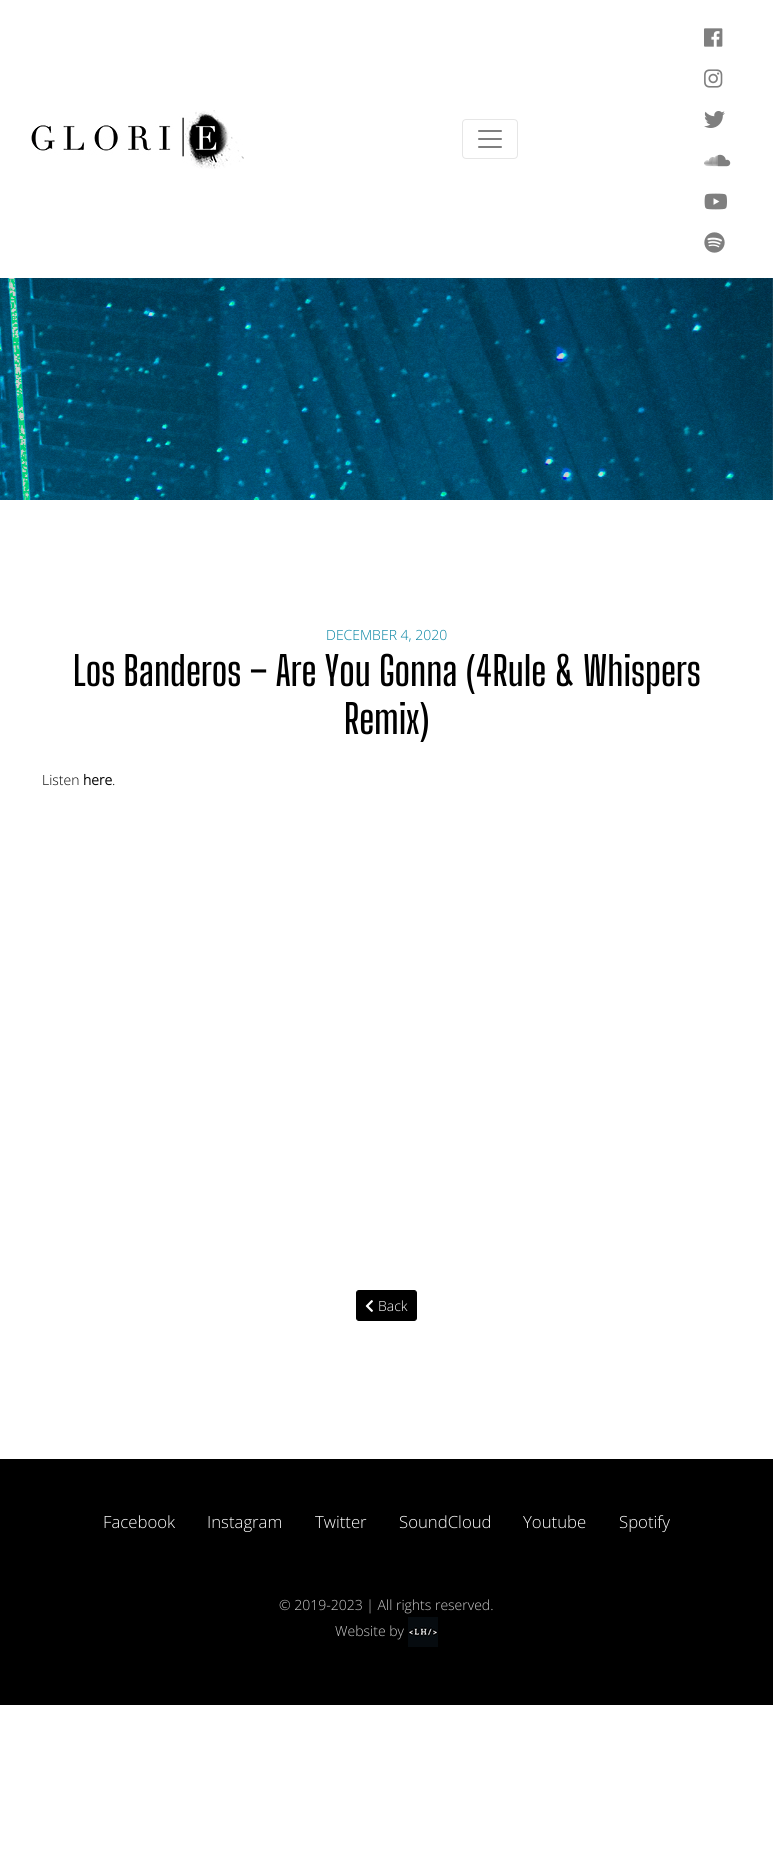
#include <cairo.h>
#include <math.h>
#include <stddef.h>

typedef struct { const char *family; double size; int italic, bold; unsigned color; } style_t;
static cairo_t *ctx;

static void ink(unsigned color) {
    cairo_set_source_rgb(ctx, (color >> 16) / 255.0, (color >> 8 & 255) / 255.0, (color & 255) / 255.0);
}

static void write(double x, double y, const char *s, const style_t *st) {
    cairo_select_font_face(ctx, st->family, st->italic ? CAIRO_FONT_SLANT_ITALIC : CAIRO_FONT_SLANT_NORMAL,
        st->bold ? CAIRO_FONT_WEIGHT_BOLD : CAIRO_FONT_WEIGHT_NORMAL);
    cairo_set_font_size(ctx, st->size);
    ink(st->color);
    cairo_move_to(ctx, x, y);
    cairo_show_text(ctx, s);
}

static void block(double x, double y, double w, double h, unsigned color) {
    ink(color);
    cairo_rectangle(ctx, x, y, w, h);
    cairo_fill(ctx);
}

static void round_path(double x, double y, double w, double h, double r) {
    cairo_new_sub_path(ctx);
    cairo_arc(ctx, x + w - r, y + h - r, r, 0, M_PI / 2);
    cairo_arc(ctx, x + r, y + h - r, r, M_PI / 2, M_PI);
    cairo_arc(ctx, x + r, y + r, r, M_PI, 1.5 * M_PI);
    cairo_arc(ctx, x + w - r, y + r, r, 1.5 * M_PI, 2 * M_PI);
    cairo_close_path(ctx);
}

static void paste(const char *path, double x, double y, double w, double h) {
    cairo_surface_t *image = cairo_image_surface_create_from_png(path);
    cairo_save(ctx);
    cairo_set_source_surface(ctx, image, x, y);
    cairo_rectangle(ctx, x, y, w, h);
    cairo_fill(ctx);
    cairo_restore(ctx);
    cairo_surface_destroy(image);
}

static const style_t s1 = {"Open Sans Light", 14, 0, 0, 0x0081a1};
static const style_t s2 = {"Big Shoulders Display Thin", 40, 0, 0, 0x000000};
static const style_t s3 = {"Open Sans Light", 14, 0, 0, 0x000000};
static const style_t s4 = {"Open Sans", 14, 0, 1, 0x000000};
static const style_t s5 = {"Open Sans Light", 14, 0, 0, 0xffffff};
static const style_t s6 = {"Open Sans Light", 16.75, 0, 0, 0xffffff};
static const style_t s7 = {"Open Sans Light", 14, 0, 0, 0xcccccc};

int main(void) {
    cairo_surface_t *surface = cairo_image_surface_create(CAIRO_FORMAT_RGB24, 773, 1874);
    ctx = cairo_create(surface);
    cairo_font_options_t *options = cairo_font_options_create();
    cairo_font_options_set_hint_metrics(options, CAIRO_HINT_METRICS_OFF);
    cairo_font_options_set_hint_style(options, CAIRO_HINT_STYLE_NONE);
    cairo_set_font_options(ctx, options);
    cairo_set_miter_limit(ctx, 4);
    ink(0xffffff);
    cairo_paint(ctx);
    paste("pic1.png", 31, 110, 213, 59);
    round_path(462.5, 119.5, 55, 39, 3.5);
    ink(0xe6e6e6);
    cairo_set_line_width(ctx, 1);
    cairo_stroke(ctx);
    paste("pic2.png", 478, 130, 24, 18);
    paste("pic3.png", 704, 28, 19, 19);
    paste("pic4.png", 704, 69, 19, 19);
    paste("pic5.png", 704, 111, 21, 17);
    paste("pic6.png", 704, 154, 27, 13);
    paste("pic7.png", 704, 193, 23, 17);
    paste("pic8.png", 704, 232, 21, 21);
    paste("pic9.png", 0, 278, 773, 222);
    write(326, 640, "DECEMBER 4, 2020", &s1);
    write(73, 686, "Los Banderos – Are You Gonna (4Rule & Whispers", &s2);
    write(344, 734, "Remix)", &s2);
    write(42, 785, "Listen", &s3);
    write(83, 785, "here", &s4);
    write(112, 785, ".", &s3);
    round_path(356.5, 1290.5, 60, 30, 2.5);
    cairo_fill_preserve(ctx);
    cairo_stroke(ctx);
    paste("pic10.png", 365, 1300, 8, 12);
    write(378, 1311, "Back", &s5);
    block(0, 1459, 773, 246, 0x000000);
    write(103, 1528, "Facebook", &s6);
    write(207, 1528, "Instagram", &s6);
    write(315, 1528, "Twitter", &s6);
    write(399, 1528, "SoundCloud", &s6);
    write(523, 1528, "Youtube", &s6);
    write(619, 1528, "Spotify", &s6);
    write(279, 1610, "© 2019-2023 | All rights reserved.", &s7);
    write(335, 1636, "Website by", &s7);
    paste("pic11.png", 408, 1617, 30, 30);
    cairo_surface_write_to_png(surface, "screenshot.png");
    cairo_font_options_destroy(options);
    cairo_destroy(ctx);
    cairo_surface_destroy(surface);
    return 0;
}
